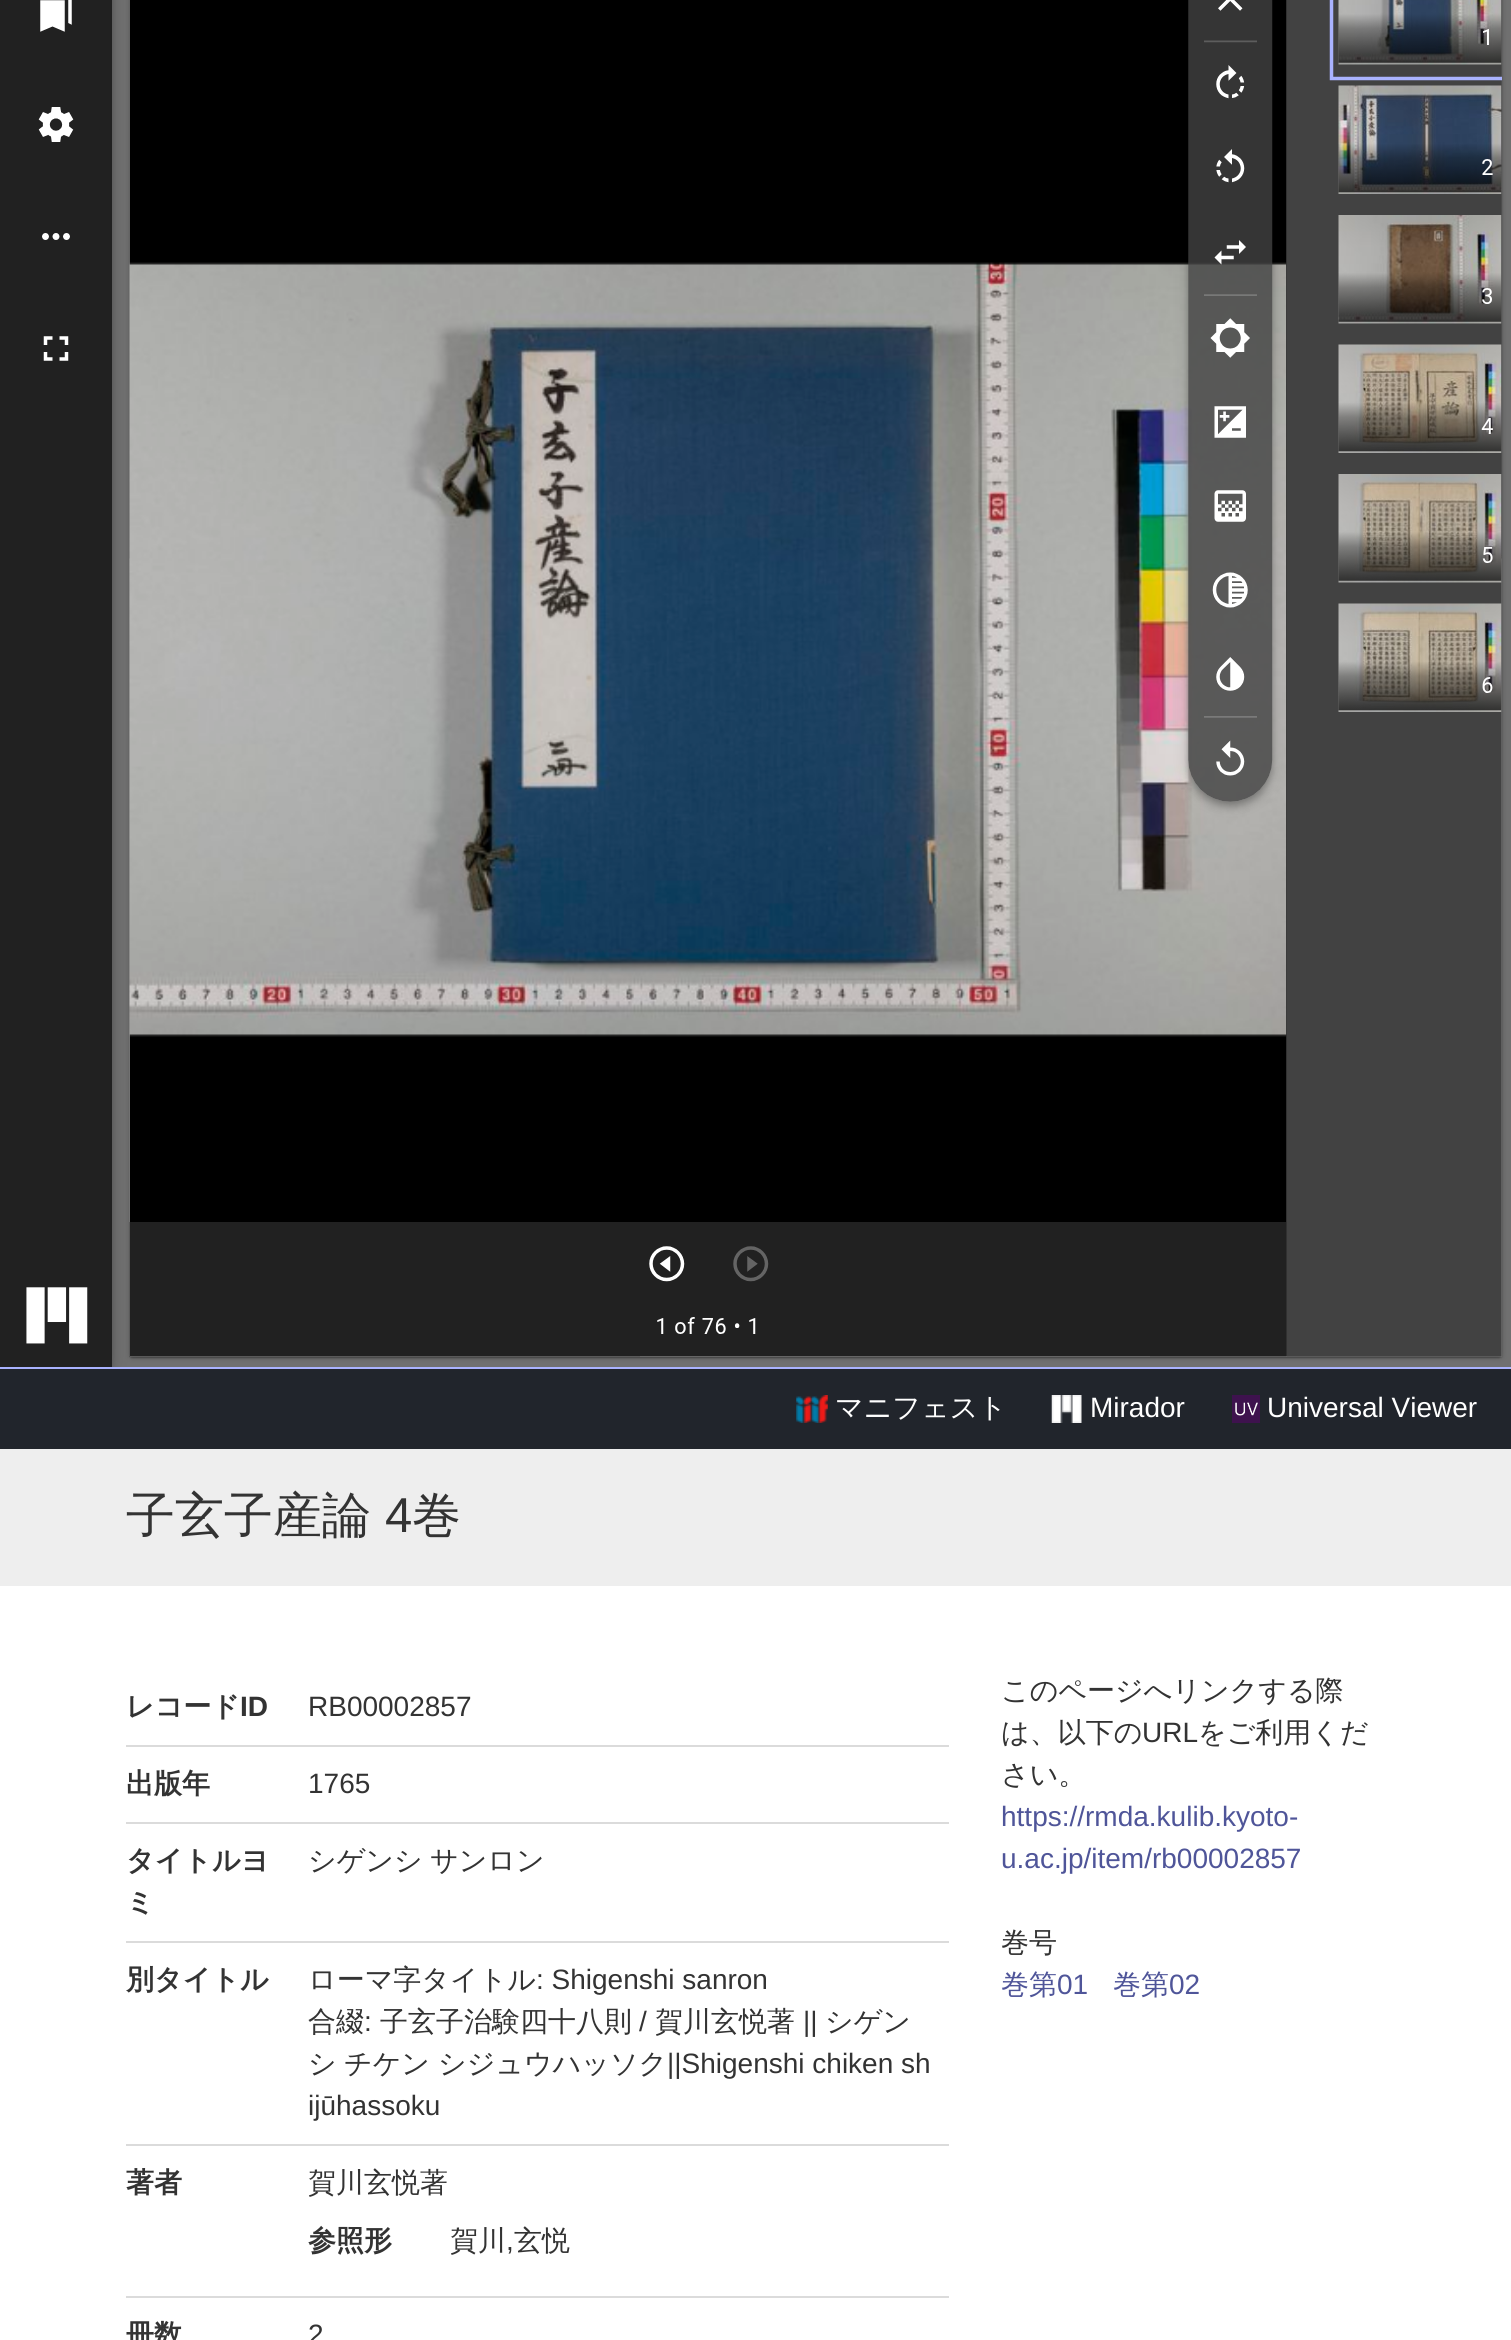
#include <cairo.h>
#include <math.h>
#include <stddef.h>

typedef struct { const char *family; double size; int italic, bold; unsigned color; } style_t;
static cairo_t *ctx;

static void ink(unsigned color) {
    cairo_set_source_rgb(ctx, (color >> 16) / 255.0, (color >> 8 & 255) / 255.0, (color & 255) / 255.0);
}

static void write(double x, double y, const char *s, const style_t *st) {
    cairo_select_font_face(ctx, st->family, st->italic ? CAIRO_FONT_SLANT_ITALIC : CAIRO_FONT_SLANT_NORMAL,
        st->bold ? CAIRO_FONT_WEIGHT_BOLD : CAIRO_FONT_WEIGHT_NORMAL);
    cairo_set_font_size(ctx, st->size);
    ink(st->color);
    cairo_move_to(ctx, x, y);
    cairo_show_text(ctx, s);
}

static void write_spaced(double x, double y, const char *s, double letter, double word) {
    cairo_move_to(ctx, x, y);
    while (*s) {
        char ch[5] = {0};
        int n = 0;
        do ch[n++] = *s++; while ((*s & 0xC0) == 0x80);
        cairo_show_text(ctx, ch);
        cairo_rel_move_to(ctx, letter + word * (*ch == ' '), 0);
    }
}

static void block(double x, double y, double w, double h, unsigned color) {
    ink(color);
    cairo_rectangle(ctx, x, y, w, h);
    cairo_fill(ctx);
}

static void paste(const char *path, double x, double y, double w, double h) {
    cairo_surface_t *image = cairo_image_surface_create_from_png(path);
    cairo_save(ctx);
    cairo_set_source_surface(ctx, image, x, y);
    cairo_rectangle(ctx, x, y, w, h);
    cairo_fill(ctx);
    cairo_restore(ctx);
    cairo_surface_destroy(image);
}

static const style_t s1 = {"WenQuanYi Zen Hei Medium", 28, 0, 0, 0xffffff};
static const style_t s2 = {"Liberation Sans", 28, 0, 0, 0xffffff};
static const style_t s3 = {"WenQuanYi Zen Hei Medium", 49, 0, 0, 0x333333};
static const style_t s4 = {"Liberation Sans", 49, 0, 0, 0x333333};
static const style_t s5 = {"WenQuanYi Zen Hei", 28, 0, 1, 0x333333};
static const style_t s6 = {"Liberation Sans", 28, 0, 1, 0x333333};
static const style_t s7 = {"Liberation Sans", 28, 0, 0, 0x333333};
static const style_t s8 = {"WenQuanYi Zen Hei Medium", 28, 0, 0, 0x333333};
static const style_t s9 = {"Liberation Sans", 28, 0, 0, 0x4f5599};
static const style_t s10 = {"WenQuanYi Zen Hei Medium", 28, 0, 0, 0x4f5599};

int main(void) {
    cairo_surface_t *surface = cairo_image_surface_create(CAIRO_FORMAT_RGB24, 1511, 2340);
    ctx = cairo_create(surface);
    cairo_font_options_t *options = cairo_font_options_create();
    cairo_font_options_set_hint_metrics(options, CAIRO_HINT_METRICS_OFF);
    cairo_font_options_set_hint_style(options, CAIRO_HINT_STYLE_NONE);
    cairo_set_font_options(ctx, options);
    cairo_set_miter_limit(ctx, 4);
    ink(0xffffff);
    cairo_paint(ctx);
    paste("pic1.png", 0, 0, 1511, 1367);
    block(0, 1369, 1511, 80, 0x21252c);
    block(0, 1367, 1511, 2, 0xaab3ff);
    paste("pic2.png", 796, 1395, 32, 28);
    write(835, 1417, "マニフェスト", &s1);
    paste("pic3.png", 1051, 1395, 31, 28);
    write(1090, 1417, "Mirador", &s2);
    paste("pic4.png", 1232, 1395, 28, 28);
    write(1267, 1417, "Universal Viewer", &s2);
    block(0, 1449, 1511, 137, 0xeeeeee);
    write(126, 1532, "子玄子産論", &s3);
    write(385, 1532, "4", &s4);
    write(412, 1532, "巻", &s3);
    block(126, 1745, 823, 2, 0xdbdbdb);
    write(126, 1716, "レコード", &s5);
    write(240, 1716, "ID", &s6);
    write(308, 1716, "RB00002857", &s7);
    block(126, 1822, 823, 2, 0xdbdbdb);
    write(126, 1793, "出版年", &s5);
    write(308, 1793, "1765", &s7);
    block(126, 1941, 823, 2, 0xdbdbdb);
    write(126, 1870, "タイトルヨ", &s5);
    write(126, 1912, "ミ", &s5);
    cairo_select_font_face(ctx, "WenQuanYi Zen Hei Medium", CAIRO_FONT_SLANT_NORMAL, CAIRO_FONT_WEIGHT_NORMAL);
    write_spaced(308, 1870, "シゲンシ サンロン", 0, -1);
    block(126, 2144, 823, 2, 0xdbdbdb);
    write(126, 1989, "別タイトル", &s5);
    write(308, 1989, "ローマ字タイトル", &s8);
    write(536, 1989, ": Shigenshi sanron", &s7);
    write(308, 2031, "合綴", &s8);
    write(364, 2031, ":", &s7);
    write(380, 2031, "子玄子治験四十八則", &s8);
    write(639, 2031, "/", &s7);
    write(655, 2031, "賀川玄悦著", &s8);
    write(803, 2031, "||", &s7);
    write(825, 2031, "シゲン", &s8);
    write(308, 2073, "シ", &s8);
    write(344, 2073, "チケン", &s8);
    write(438, 2073, "シジュウハッソク", &s8);
    write(667, 2073, "||Shigenshi chiken sh", &s7);
    write(308, 2115, "ijūhassoku", &s7);
    block(126, 2296, 823, 2, 0xdbdbdb);
    write(126, 2192, "著者", &s5);
    write(308, 2192, "賀川玄悦著", &s8);
    write(308, 2250, "参照形", &s5);
    write(450, 2250, "賀川", &s8);
    write(506, 2250, ",", &s7);
    write(514, 2250, "玄悦", &s8);
    write(126, 2344, "冊数", &s5);
    write(308, 2344, "2", &s7);
    write(1001, 1700, "このページへリンクする際", &s8);
    write(1001, 1742, "は、以下の", &s8);
    write(1142, 1742, "URL", &s7);
    write(1198, 1742, "をご利用くだ", &s8);
    write(1001, 1784, "さい。", &s8);
    write(1001, 1826, "https://rmda.kulib.kyoto-", &s9);
    write(1001, 1868, "u.ac.jp/item/rb00002857", &s9);
    write(1001, 1952, "巻号", &s8);
    write(1001, 1994, "巻第", &s10);
    write(1057, 1994, "01", &s9);
    write(1113, 1994, "巻第", &s10);
    write(1169, 1994, "02", &s9);
    cairo_surface_write_to_png(surface, "screenshot.png");
    cairo_font_options_destroy(options);
    cairo_destroy(ctx);
    cairo_surface_destroy(surface);
    return 0;
}
